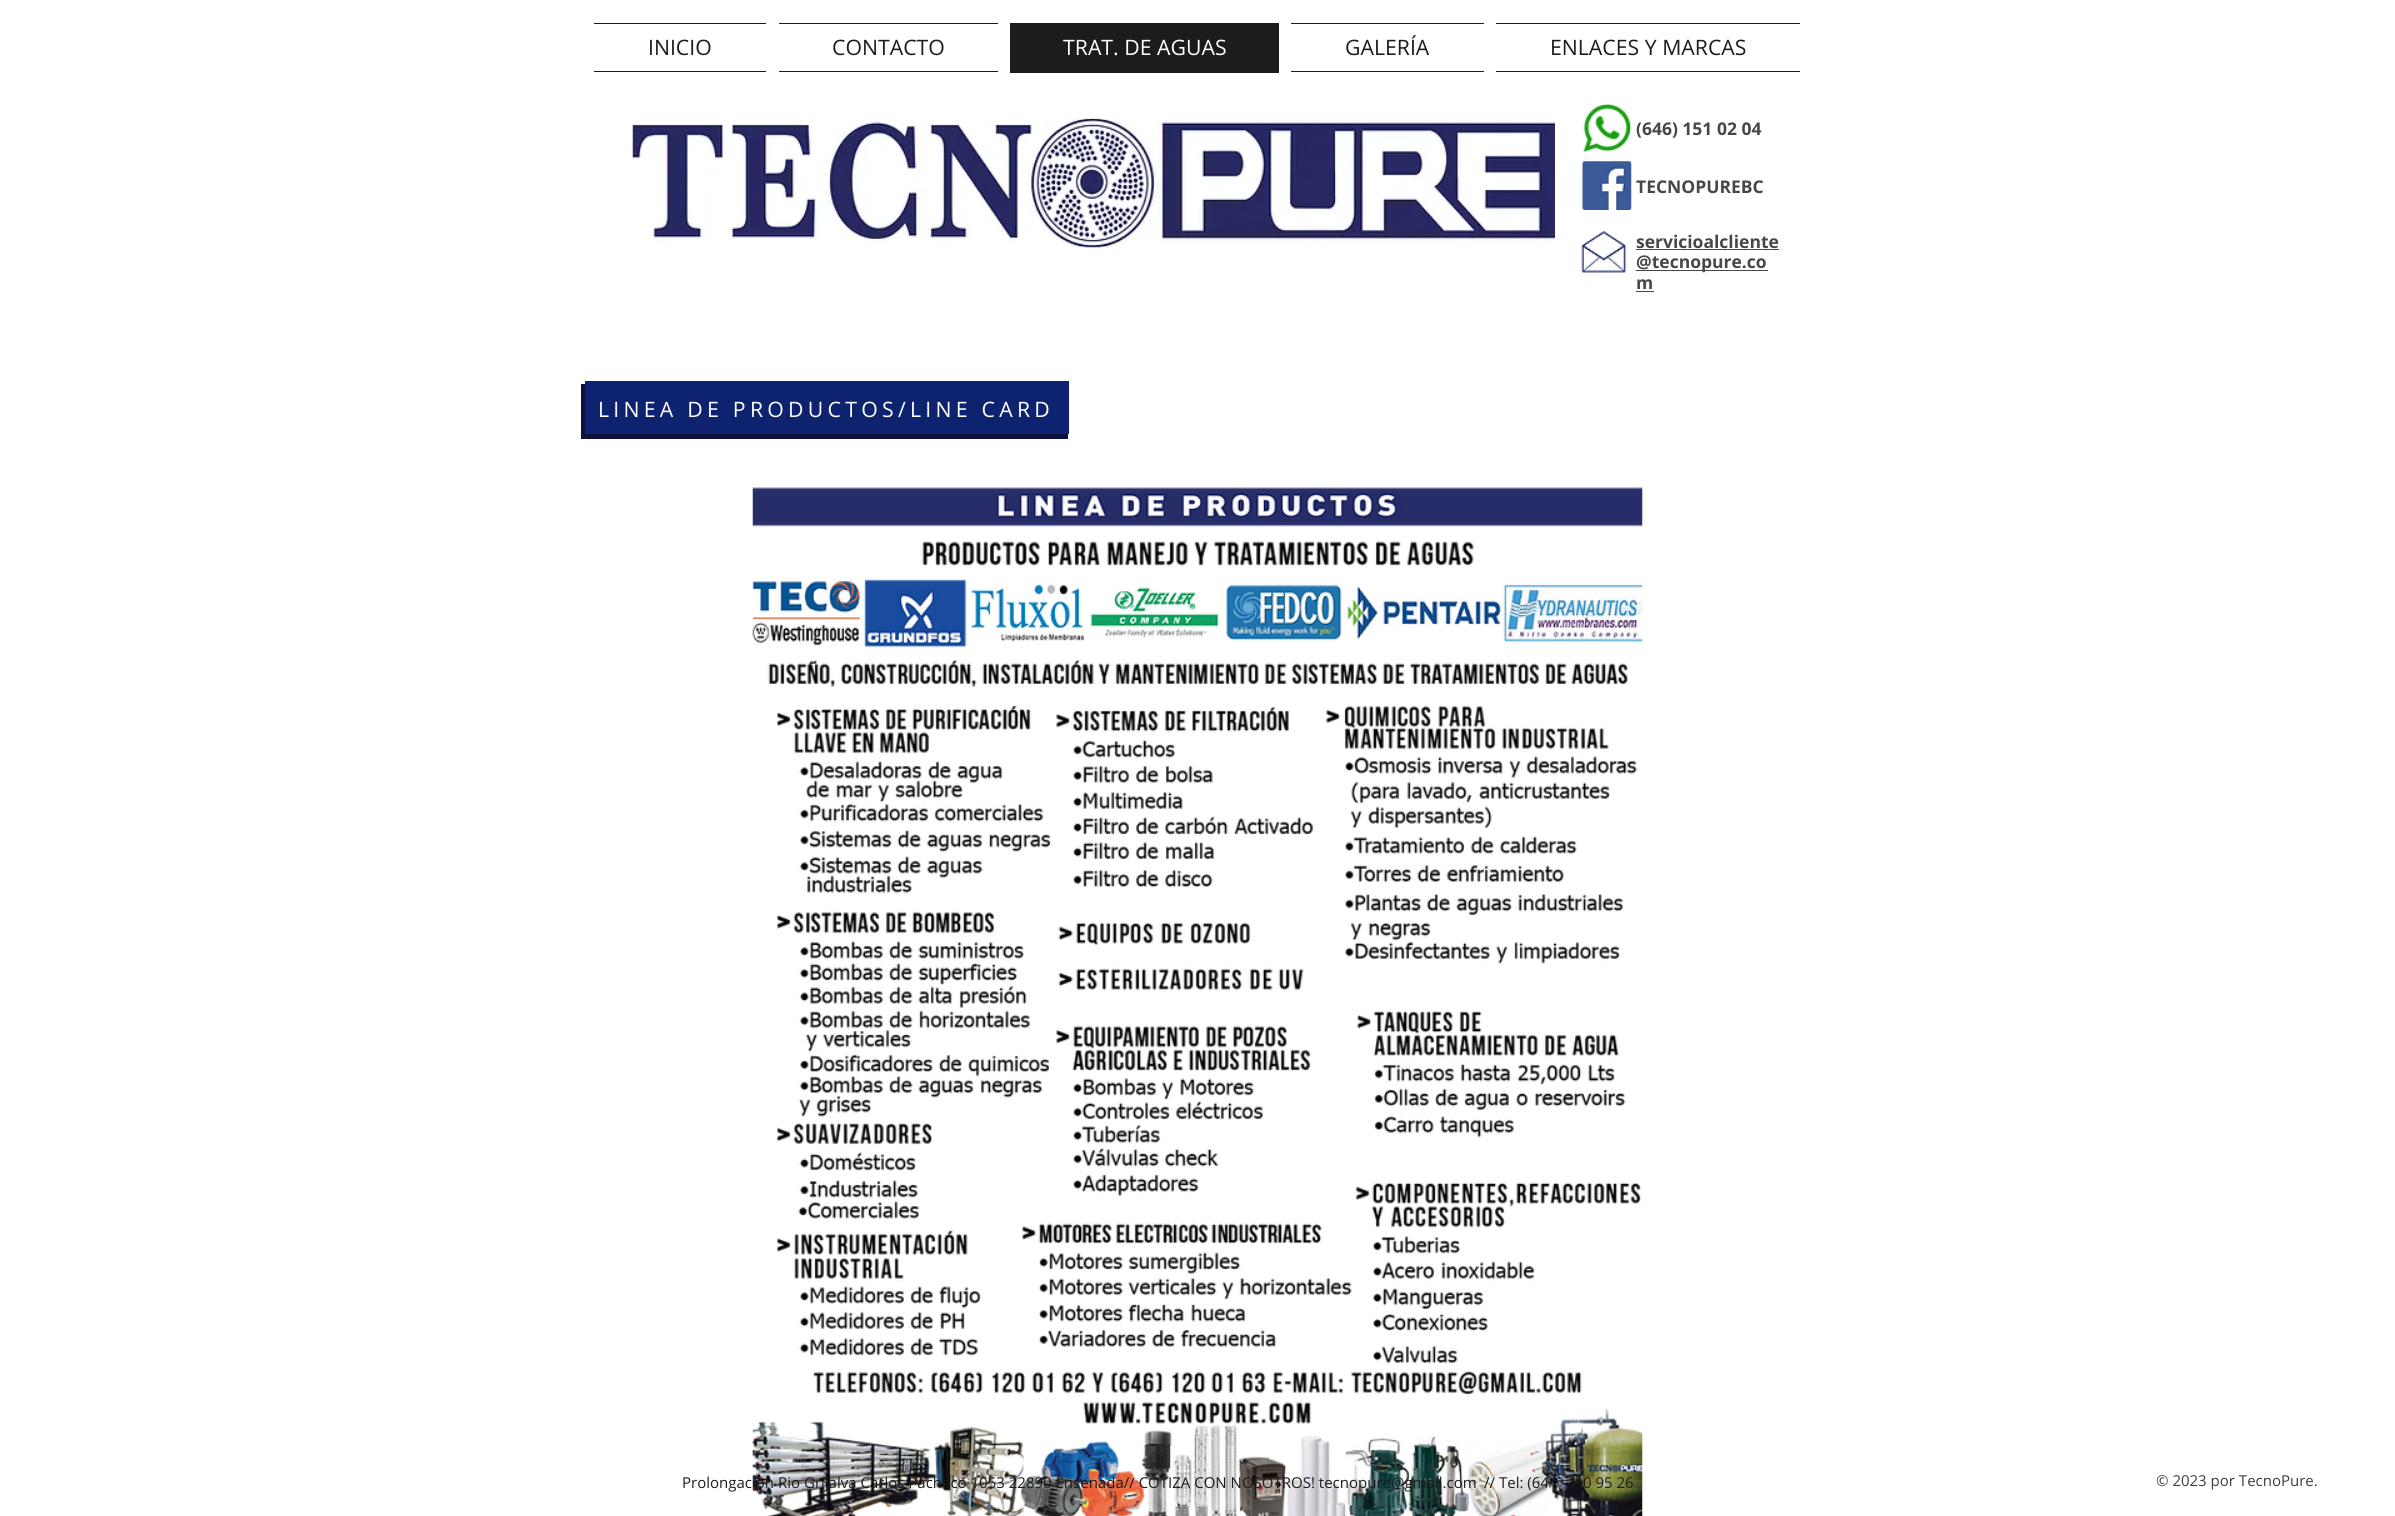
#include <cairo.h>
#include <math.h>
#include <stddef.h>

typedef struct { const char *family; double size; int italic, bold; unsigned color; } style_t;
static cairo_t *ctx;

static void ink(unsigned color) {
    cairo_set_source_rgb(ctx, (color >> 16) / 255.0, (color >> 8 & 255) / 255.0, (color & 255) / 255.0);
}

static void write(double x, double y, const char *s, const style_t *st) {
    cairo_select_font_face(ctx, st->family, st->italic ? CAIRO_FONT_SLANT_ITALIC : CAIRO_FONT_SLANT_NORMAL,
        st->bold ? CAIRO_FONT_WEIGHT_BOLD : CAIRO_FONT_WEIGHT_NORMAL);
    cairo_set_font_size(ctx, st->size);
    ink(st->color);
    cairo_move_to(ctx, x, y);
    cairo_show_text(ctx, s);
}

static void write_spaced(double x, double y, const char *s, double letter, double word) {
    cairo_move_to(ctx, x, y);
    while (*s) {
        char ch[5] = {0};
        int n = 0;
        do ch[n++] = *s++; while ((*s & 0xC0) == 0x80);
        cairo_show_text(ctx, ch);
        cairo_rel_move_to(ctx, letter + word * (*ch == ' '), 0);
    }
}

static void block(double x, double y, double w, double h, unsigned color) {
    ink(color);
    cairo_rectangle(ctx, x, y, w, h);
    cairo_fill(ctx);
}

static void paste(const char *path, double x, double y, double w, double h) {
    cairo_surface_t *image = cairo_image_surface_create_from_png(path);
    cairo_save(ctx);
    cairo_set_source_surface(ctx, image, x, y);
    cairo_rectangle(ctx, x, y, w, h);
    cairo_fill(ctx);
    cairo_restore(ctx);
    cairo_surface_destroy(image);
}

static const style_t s1 = {"Open Sans", 21.25, 0, 0, 0x1c1c1c};
static const style_t s2 = {"Open Sans", 21.25, 0, 0, 0xffffff};
static const style_t s3 = {"Open Sans", 17.5, 0, 1, 0x474747};
static const style_t s4 = {"Open Sans", 15, 0, 0, 0x1c1c1c};
static const style_t s5 = {"Open Sans", 15, 0, 0, 0x3e3e3e};

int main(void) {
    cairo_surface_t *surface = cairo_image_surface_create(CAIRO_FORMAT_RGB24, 2395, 1516);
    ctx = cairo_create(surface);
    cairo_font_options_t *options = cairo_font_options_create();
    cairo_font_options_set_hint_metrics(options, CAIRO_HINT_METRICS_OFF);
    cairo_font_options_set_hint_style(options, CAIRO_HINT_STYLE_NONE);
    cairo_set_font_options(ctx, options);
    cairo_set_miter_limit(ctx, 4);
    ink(0xffffff);
    cairo_paint(ctx);
    block(594, 23, 172, 1, 0x1c1c1c);
    block(594, 71, 172, 1, 0x1c1c1c);
    write(648, 55, "INICIO", &s1);
    block(779, 23, 219, 1, 0x1c1c1c);
    block(779, 71, 219, 1, 0x1c1c1c);
    write(832, 55, "CONTACTO", &s1);
    block(1010, 23, 269, 50, 0x1c1c1c);
    write(1063, 55, "TRAT. DE AGUAS", &s2);
    block(1291, 23, 193, 1, 0x1c1c1c);
    block(1291, 71, 193, 1, 0x1c1c1c);
    write(1345, 55, "GALERÍA", &s1);
    block(1496, 23, 304, 1, 0x1c1c1c);
    block(1496, 71, 304, 1, 0x1c1c1c);
    write(1550, 55, "ENLACES Y MARCAS", &s1);
    paste("pic1.png", 632, 118, 923, 130);
    paste("pic2.png", 1583, 104, 48, 49);
    write(1636, 135, "(646) 151 02 04", &s3);
    paste("pic3.png", 1582, 161, 50, 49);
    write(1636, 193, "TECNOPUREBC", &s3);
    paste("pic4.png", 1581, 231, 46, 42);
    write(1636, 248, "servicioalcliente", &s3);
    block(1636, 249, 143, 1, 0x474747);
    block(1636, 270, 132, 1, 0x474747);
    write(1636, 268, "@tecnopure.co", &s3);
    write(1636, 289, "m", &s3);
    block(1636, 291, 18, 1, 0x474747);
    ink(0x0e0e3f);
    cairo_new_path(ctx);
    cairo_move_to(ctx, 581, 384);
    cairo_line_to(ctx, 581, 439);
    cairo_line_to(ctx, 1068, 439);
    cairo_line_to(ctx, 1068, 434);
    cairo_line_to(ctx, 585, 434);
    cairo_line_to(ctx, 585, 384);
    cairo_close_path(ctx);
    cairo_fill(ctx);
    block(585, 381, 484, 53, 0x0d2370);
    cairo_select_font_face(ctx, "Open Sans", CAIRO_FONT_SLANT_NORMAL, CAIRO_FONT_WEIGHT_NORMAL);
    cairo_set_font_size(ctx, 21.25);
    ink(0xffffff);
    write_spaced(598, 417, "LINEA DE PRODUCTOS/LINE CARD", 4.25, 0);
    paste("pic5.png", 752, 487, 891, 1029);
    write(682, 1488, "Prolongacion Rio Grijalva Carlos Pacheco 1053 22890 Ensenada// COTIZA CON NOSOTROS! tecnopure@gmail.com", &s4);
    write(1484, 1488, "// Tel: (64", &s4);
    write(1583, 1488, "0 95 26", &s4);
    write(2156, 1486, "© 2023 por TecnoPure.", &s5);
    cairo_surface_write_to_png(surface, "screenshot.png");
    cairo_font_options_destroy(options);
    cairo_destroy(ctx);
    cairo_surface_destroy(surface);
    return 0;
}
